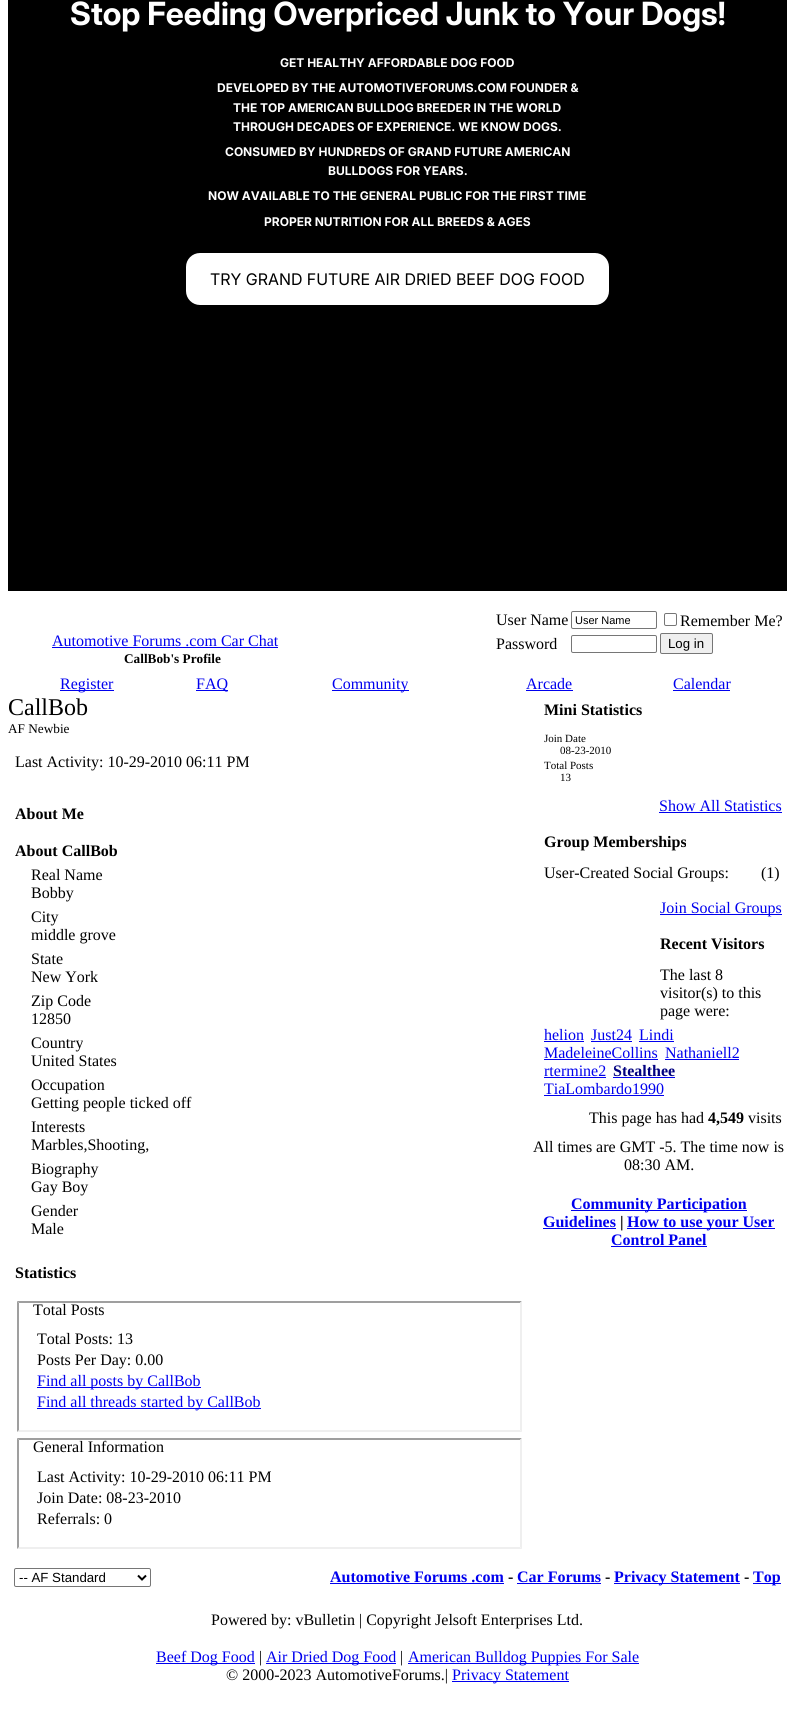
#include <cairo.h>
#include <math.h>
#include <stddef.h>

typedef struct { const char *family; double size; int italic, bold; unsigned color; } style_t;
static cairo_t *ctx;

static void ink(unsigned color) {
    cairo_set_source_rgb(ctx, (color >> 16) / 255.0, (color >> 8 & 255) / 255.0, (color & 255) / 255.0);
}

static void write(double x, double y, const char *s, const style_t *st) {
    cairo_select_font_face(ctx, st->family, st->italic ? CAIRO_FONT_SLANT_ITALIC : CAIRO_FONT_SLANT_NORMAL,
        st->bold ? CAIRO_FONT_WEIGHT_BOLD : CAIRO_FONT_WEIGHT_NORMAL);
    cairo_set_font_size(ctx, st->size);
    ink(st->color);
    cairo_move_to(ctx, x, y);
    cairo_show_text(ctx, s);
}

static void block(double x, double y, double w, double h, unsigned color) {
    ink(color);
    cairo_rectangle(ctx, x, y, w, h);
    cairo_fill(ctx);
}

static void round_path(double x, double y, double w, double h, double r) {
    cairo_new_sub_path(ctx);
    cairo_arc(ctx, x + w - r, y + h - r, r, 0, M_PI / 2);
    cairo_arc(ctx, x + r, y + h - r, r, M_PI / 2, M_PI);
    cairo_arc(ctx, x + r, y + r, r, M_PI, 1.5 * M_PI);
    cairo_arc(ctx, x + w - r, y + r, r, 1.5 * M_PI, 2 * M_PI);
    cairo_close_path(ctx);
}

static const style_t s1 = {"Inter", 32, 0, 1, 0xffffff};
static const style_t s2 = {"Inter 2", 12, 0, 1, 0xffffff};
static const style_t s3 = {"Inter", 16, 0, 0, 0x000000};
static const style_t s4 = {"Liberation Serif", 16, 0, 0, 0x0000ee};
static const style_t s5 = {"Liberation Serif", 13.25, 0, 1, 0x000000};
static const style_t s6 = {"Liberation Serif", 16, 0, 0, 0x000000};
static const style_t s7 = {"Liberation Sans", 11, 0, 0, 0x000000};
static const style_t s8 = {"Liberation Sans", 13.25, 0, 0, 0x000000};
static const style_t s9 = {"Liberation Serif", 24, 0, 0, 0x000000};
static const style_t s10 = {"Liberation Serif", 13.25, 0, 0, 0x000000};
static const style_t s11 = {"Liberation Serif", 16, 0, 1, 0x000000};
static const style_t s12 = {"Liberation Serif", 11, 0, 0, 0x000000};
static const style_t s13 = {"Liberation Serif", 16, 0, 1, 0x000080};
static const style_t s14 = {"Liberation Serif", 16, 0, 1, 0x0000ee};

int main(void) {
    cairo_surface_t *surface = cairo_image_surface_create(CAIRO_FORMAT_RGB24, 795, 1710);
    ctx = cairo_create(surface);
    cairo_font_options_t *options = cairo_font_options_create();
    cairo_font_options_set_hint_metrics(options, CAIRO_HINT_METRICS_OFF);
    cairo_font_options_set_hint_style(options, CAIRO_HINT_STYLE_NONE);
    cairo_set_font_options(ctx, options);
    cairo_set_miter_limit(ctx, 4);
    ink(0xffffff);
    cairo_paint(ctx);
    block(8, 0, 779, 591, 0x000000);
    write(70, 25, "Stop Feeding Overpriced Junk to Your Dogs!", &s1);
    write(280, 67, "GET HEALTHY AFFORDABLE DOG FOOD", &s2);
    write(217, 92, "DEVELOPED BY THE AUTOMOTIVEFORUMS.COM FOUNDER &", &s2);
    write(233, 112, "THE TOP AMERICAN BULLDOG BREEDER IN THE WORLD", &s2);
    write(233, 131, "THROUGH DECADES OF EXPERIENCE. WE KNOW DOGS.", &s2);
    write(225, 156, "CONSUMED BY HUNDREDS OF GRAND FUTURE AMERICAN", &s2);
    write(328, 175, "BULLDOGS FOR YEARS.", &s2);
    write(208, 200, "NOW AVAILABLE TO THE GENERAL PUBLIC FOR THE FIRST TIME", &s2);
    write(264, 226, "PROPER NUTRITION FOR ALL BREEDS & AGES", &s2);
    round_path(186, 253, 423, 52, 14);
    cairo_fill(ctx);
    write(210, 285, "TRY GRAND FUTURE AIR DRIED BEEF DOG FOOD", &s3);
    write(52, 646, "Automotive Forums .com Car Chat", &s4);
    block(52, 647, 226, 1, 0x0000ee);
    write(124, 663, "CallBob's Profile", &s5);
    write(496, 625, "User Name", &s6);
    round_path(571.5, 611.5, 85, 17, 1.5);
    ink(0x767676);
    cairo_set_line_width(ctx, 1);
    cairo_stroke(ctx);
    write(575, 624, "User Name", &s7);
    round_path(664.5, 613.5, 12, 12, 1.5);
    ink(0x767676);
    cairo_stroke(ctx);
    write(680, 626, "Remember Me?", &s6);
    write(496, 649, "Password", &s6);
    round_path(571.5, 635.5, 85, 17, 1.5);
    ink(0x767676);
    cairo_stroke(ctx);
    ink(0xefefef);
    round_path(660.5, 633.5, 52, 20, 1.5);
    cairo_fill_preserve(ctx);
    ink(0x767676);
    cairo_stroke(ctx);
    write(668, 648, "Log in", &s8);
    block(60, 690, 54, 1, 0x0000ee);
    write(60, 689, "Register", &s4);
    block(196, 690, 32, 1, 0x0000ee);
    write(196, 689, "FAQ", &s4);
    block(332, 690, 77, 1, 0x0000ee);
    write(332, 689, "Community", &s4);
    write(526, 689, "Arcade", &s4);
    block(526, 690, 47, 1, 0x0000ee);
    write(673, 689, "Calendar", &s4);
    block(673, 690, 57, 1, 0x0000ee);
    write(8, 715, "CallBob", &s9);
    write(8, 733, "AF Newbie", &s10);
    write(15, 767, "Last Activity: 10-29-2010 06:11 PM", &s6);
    write(15, 819, "About Me", &s11);
    write(15, 856, "About CallBob", &s11);
    write(31, 880, "Real Name", &s6);
    write(31, 898, "Bobby", &s6);
    write(31, 922, "City", &s6);
    write(31, 940, "middle grove", &s6);
    write(31, 964, "State", &s6);
    write(31, 982, "New York", &s6);
    write(31, 1006, "Zip Code", &s6);
    write(31, 1024, "12850", &s6);
    write(31, 1048, "Country", &s6);
    write(31, 1066, "United States", &s6);
    write(31, 1090, "Occupation", &s6);
    write(31, 1108, "Getting people ticked off", &s6);
    write(31, 1132, "Interests", &s6);
    write(31, 1150, "Marbles,Shooting,", &s6);
    write(31, 1174, "Biography", &s6);
    write(31, 1192, "Gay Boy", &s6);
    write(31, 1216, "Gender", &s6);
    write(31, 1234, "Male", &s6);
    write(15, 1278, "Statistics", &s11);
    ink(0x9f9f9f);
    cairo_new_path(ctx);
    cairo_move_to(ctx, 17, 1301);
    cairo_line_to(ctx, 522, 1301);
    cairo_line_to(ctx, 520, 1303);
    cairo_line_to(ctx, 19, 1303);
    cairo_close_path(ctx);
    cairo_fill(ctx);
    ink(0xefefef);
    cairo_new_path(ctx);
    cairo_move_to(ctx, 522, 1301);
    cairo_line_to(ctx, 522, 1432);
    cairo_line_to(ctx, 520, 1430);
    cairo_line_to(ctx, 520, 1303);
    cairo_close_path(ctx);
    cairo_fill(ctx);
    cairo_new_path(ctx);
    cairo_move_to(ctx, 522, 1432);
    cairo_line_to(ctx, 17, 1432);
    cairo_line_to(ctx, 19, 1430);
    cairo_line_to(ctx, 520, 1430);
    cairo_close_path(ctx);
    cairo_fill(ctx);
    ink(0x9f9f9f);
    cairo_new_path(ctx);
    cairo_move_to(ctx, 17, 1432);
    cairo_line_to(ctx, 17, 1301);
    cairo_line_to(ctx, 19, 1303);
    cairo_line_to(ctx, 19, 1430);
    cairo_close_path(ctx);
    cairo_fill(ctx);
    write(33, 1315, "Total Posts", &s6);
    write(37, 1344, "Total Posts: 13", &s6);
    write(37, 1365, "Posts Per Day: 0.00", &s6);
    block(37, 1387, 164, 1, 0x0000ee);
    write(37, 1386, "Find all posts by CallBob", &s4);
    block(37, 1408, 224, 1, 0x0000ee);
    write(37, 1407, "Find all threads started by CallBob", &s4);
    ink(0x9f9f9f);
    cairo_new_path(ctx);
    cairo_move_to(ctx, 17, 1438);
    cairo_line_to(ctx, 522, 1438);
    cairo_line_to(ctx, 520, 1440);
    cairo_line_to(ctx, 19, 1440);
    cairo_close_path(ctx);
    cairo_fill(ctx);
    ink(0xefefef);
    cairo_new_path(ctx);
    cairo_move_to(ctx, 522, 1438);
    cairo_line_to(ctx, 522, 1549);
    cairo_line_to(ctx, 520, 1547);
    cairo_line_to(ctx, 520, 1440);
    cairo_close_path(ctx);
    cairo_fill(ctx);
    cairo_new_path(ctx);
    cairo_move_to(ctx, 522, 1549);
    cairo_line_to(ctx, 17, 1549);
    cairo_line_to(ctx, 19, 1547);
    cairo_line_to(ctx, 520, 1547);
    cairo_close_path(ctx);
    cairo_fill(ctx);
    ink(0x9f9f9f);
    cairo_new_path(ctx);
    cairo_move_to(ctx, 17, 1549);
    cairo_line_to(ctx, 17, 1438);
    cairo_line_to(ctx, 19, 1440);
    cairo_line_to(ctx, 19, 1547);
    cairo_close_path(ctx);
    cairo_fill(ctx);
    write(33, 1452, "General Information", &s6);
    write(37, 1482, "Last Activity: 10-29-2010 06:11 PM", &s6);
    write(37, 1503, "Join Date: 08-23-2010", &s6);
    write(37, 1524, "Referrals: 0", &s6);
    write(544, 715, "Mini Statistics", &s11);
    write(544, 742, "Join Date", &s12);
    write(560, 754, "08-23-2010", &s12);
    write(544, 769, "Total Posts", &s12);
    write(560, 781, "13", &s12);
    write(659, 811, "Show All Statistics", &s4);
    block(659, 812, 123, 1, 0x0000ee);
    write(544, 847, "Group Memberships", &s11);
    write(544, 878, "User-Created Social Groups:", &s6);
    write(761, 878, "(1)", &s6);
    block(660, 914, 122, 1, 0x0000ee);
    write(660, 913, "Join Social Groups", &s4);
    write(660, 949, "Recent Visitors", &s11);
    write(660, 980, "The last 8", &s6);
    write(660, 998, "visitor(s) to this", &s6);
    write(660, 1016, "page were:", &s6);
    write(544, 1040, "helion", &s4);
    block(544, 1041, 40, 1, 0x0000ee);
    write(591, 1040, "Just24", &s4);
    block(591, 1041, 41, 1, 0x0000ee);
    write(639, 1040, "Lindi", &s4);
    block(639, 1041, 35, 1, 0x0000ee);
    write(544, 1058, "MadeleineCollins", &s4);
    block(544, 1059, 114, 1, 0x0000ee);
    write(665, 1058, "Nathaniell2", &s4);
    block(665, 1059, 74, 1, 0x0000ee);
    write(544, 1076, "rtermine2", &s4);
    block(544, 1077, 62, 1, 0x0000ee);
    write(613, 1076, "Stealthee", &s13);
    block(613, 1077, 62, 1, 0x0000ee);
    write(544, 1094, "TiaLombardo1990", &s4);
    block(544, 1095, 120, 1, 0x0000ee);
    write(589, 1123, "This page has had", &s6);
    write(708, 1123, "4,549", &s11);
    write(748, 1123, "visits", &s6);
    write(533, 1152, "All times are GMT -5. The time now is", &s6);
    write(624, 1170, "08:30 AM.", &s6);
    block(571, 1210, 176, 1, 0x0000ee);
    write(571, 1209, "Community Participation", &s14);
    write(543, 1227, "Guidelines", &s14);
    block(543, 1228, 73, 1, 0x0000ee);
    write(620, 1227, "|", &s11);
    block(627, 1228, 148, 1, 0x0000ee);
    write(627, 1227, "How to use your User", &s14);
    write(611, 1245, "Control Panel", &s14);
    block(611, 1246, 96, 1, 0x0000ee);
    round_path(14.5, 1568.5, 136, 18, 1.5);
    ink(0x767676);
    cairo_stroke(ctx);
    cairo_new_path(ctx);
    cairo_move_to(ctx, 138, 1575.5);
    cairo_line_to(ctx, 142, 1579.5);
    cairo_line_to(ctx, 146, 1575.5);
    ink(0x000000);
    cairo_set_line_width(ctx, 2);
    cairo_stroke(ctx);
    write(19, 1582, "-- AF Standard", &s8);
    write(330, 1582, "Automotive Forums .com", &s14);
    block(330, 1583, 174, 1, 0x0000ee);
    write(508, 1582, "-", &s11);
    write(517, 1582, "Car Forums", &s14);
    block(517, 1583, 84, 1, 0x0000ee);
    write(605, 1582, "-", &s11);
    block(614, 1583, 126, 1, 0x0000ee);
    write(614, 1582, "Privacy Statement", &s14);
    write(744, 1582, "-", &s11);
    block(753, 1583, 28, 1, 0x0000ee);
    write(753, 1582, "Top", &s14);
    write(211, 1625, "Powered by: vBulletin | Copyright Jelsoft Enterprises Ltd.", &s6);
    block(156, 1663, 99, 1, 0x0000ee);
    write(156, 1662, "Beef Dog Food", &s4);
    write(259, 1662, "|", &s6);
    block(266, 1663, 130, 1, 0x0000ee);
    write(266, 1662, "Air Dried Dog Food", &s4);
    write(400, 1662, "|", &s6);
    block(408, 1663, 231, 1, 0x0000ee);
    write(408, 1662, "American Bulldog Puppies For Sale", &s4);
    write(226, 1680, "© 2000-2023 AutomotiveForums.|", &s6);
    block(452, 1681, 117, 1, 0x0000ee);
    write(452, 1680, "Privacy Statement", &s4);
    cairo_surface_write_to_png(surface, "screenshot.png");
    cairo_font_options_destroy(options);
    cairo_destroy(ctx);
    cairo_surface_destroy(surface);
    return 0;
}
